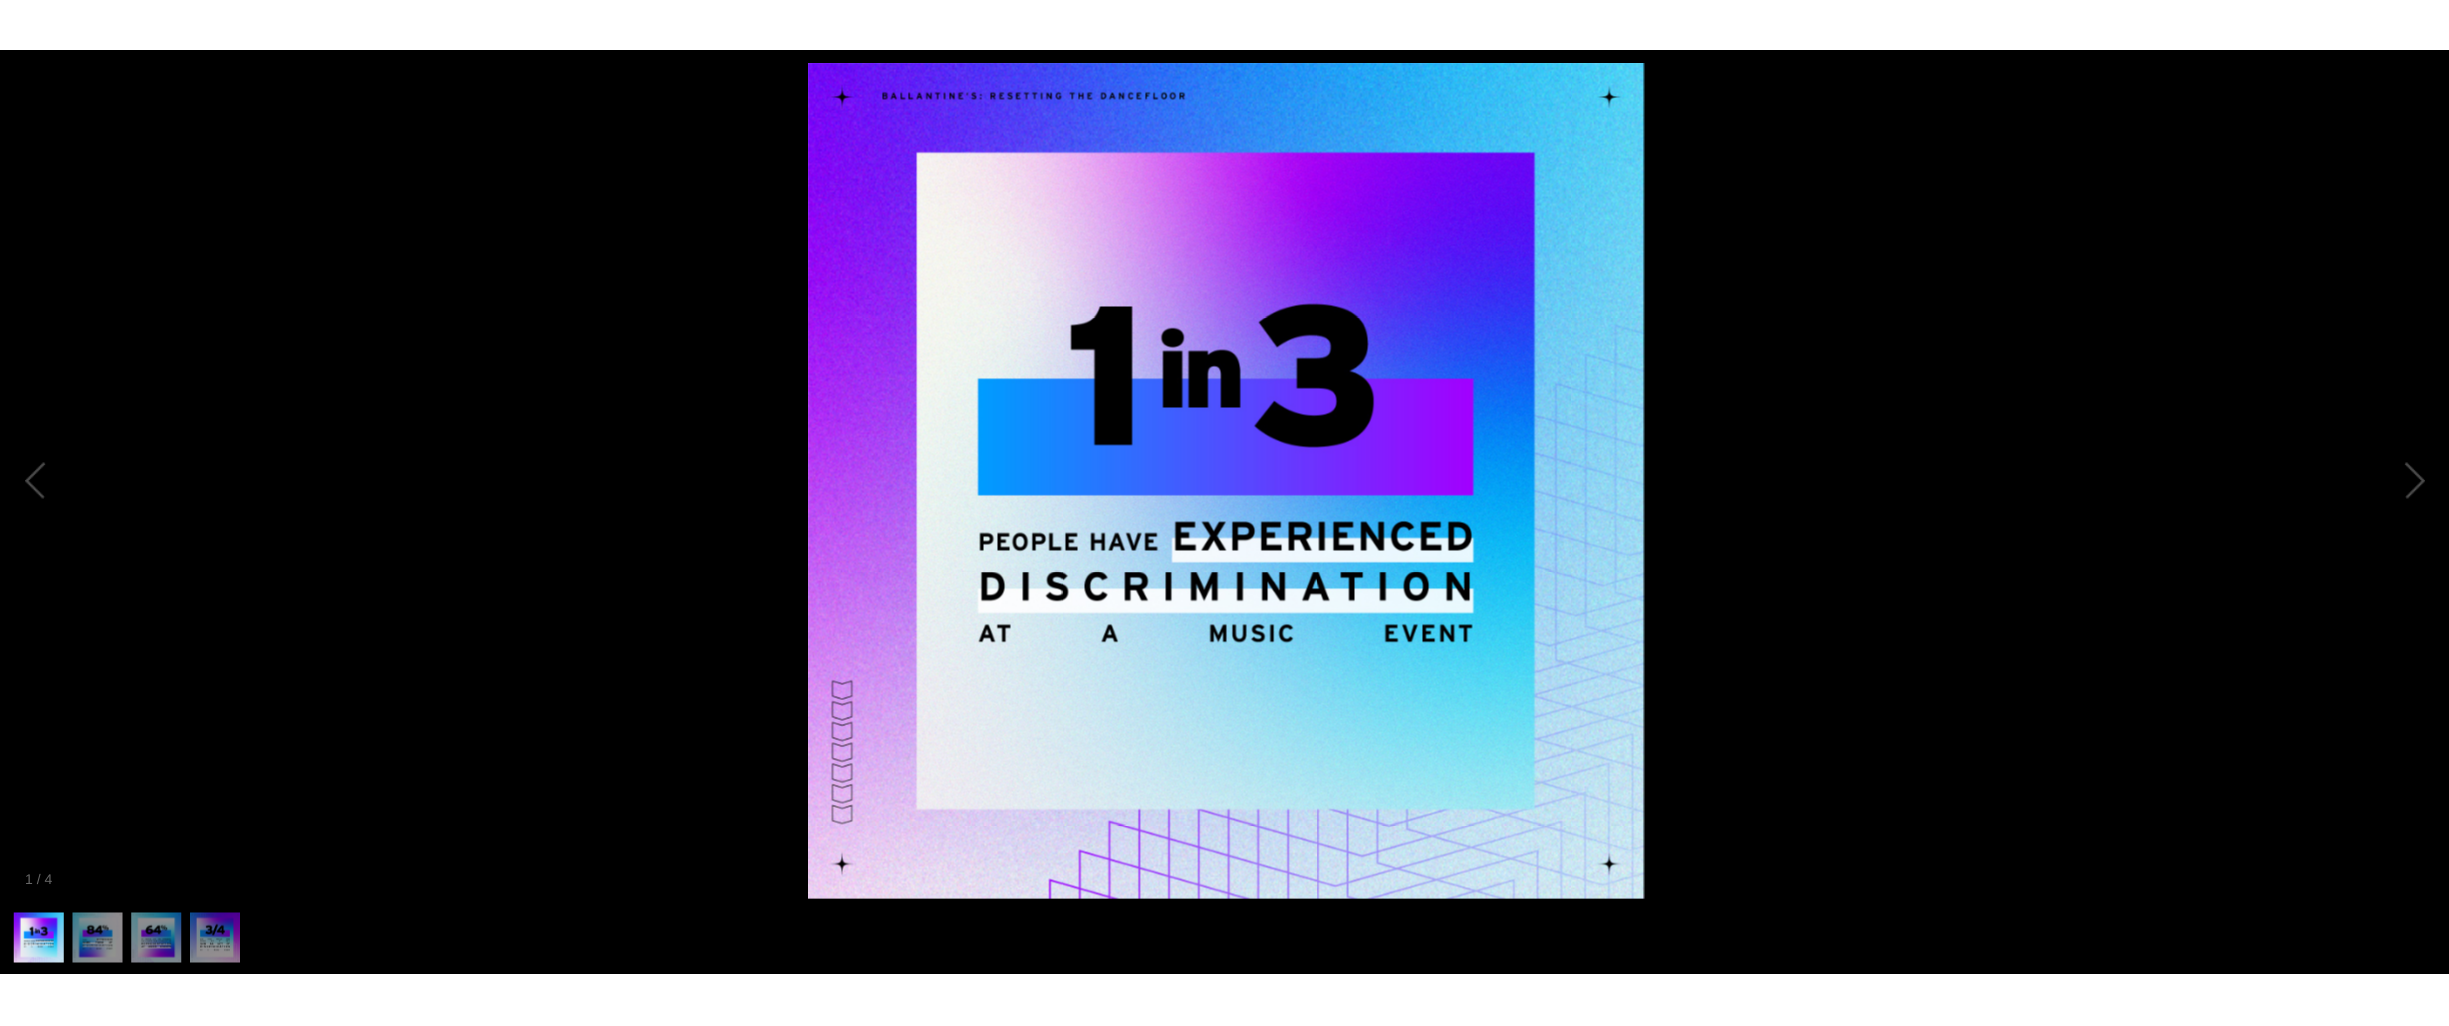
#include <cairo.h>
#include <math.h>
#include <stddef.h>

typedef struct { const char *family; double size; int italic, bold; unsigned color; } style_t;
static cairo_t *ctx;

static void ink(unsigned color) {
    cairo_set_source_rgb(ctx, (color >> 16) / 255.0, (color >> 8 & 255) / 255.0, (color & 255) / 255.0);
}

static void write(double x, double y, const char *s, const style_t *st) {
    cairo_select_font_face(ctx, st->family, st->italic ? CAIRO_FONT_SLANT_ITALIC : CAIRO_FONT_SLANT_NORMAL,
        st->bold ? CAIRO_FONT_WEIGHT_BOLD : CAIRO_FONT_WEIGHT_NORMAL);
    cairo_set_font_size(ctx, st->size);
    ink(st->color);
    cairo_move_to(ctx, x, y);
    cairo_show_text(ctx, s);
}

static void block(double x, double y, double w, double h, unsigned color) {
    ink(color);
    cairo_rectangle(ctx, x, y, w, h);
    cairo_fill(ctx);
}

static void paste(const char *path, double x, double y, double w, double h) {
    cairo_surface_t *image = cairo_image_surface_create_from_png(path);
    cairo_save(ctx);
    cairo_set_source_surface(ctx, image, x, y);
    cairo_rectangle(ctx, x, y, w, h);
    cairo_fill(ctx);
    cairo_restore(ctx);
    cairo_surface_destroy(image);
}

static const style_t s1 = {"Liberation Sans", 14, 0, 0, 0x666666};

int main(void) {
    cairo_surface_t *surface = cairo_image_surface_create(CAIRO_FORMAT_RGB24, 2449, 1026);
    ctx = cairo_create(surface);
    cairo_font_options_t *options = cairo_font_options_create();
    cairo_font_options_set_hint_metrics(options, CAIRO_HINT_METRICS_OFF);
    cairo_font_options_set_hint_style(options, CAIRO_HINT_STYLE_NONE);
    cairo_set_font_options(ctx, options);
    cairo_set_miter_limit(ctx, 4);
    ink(0xffffff);
    cairo_paint(ctx);
    block(0, 50, 2449, 924, 0x000000);
    paste("pic1.png", 808, 63, 837, 836);
    paste("pic2.png", 25, 462, 21, 37);
    paste("pic3.png", 2404, 462, 21, 37);
    write(25, 884, "1 / 4", &s1);
    paste("pic4.png", 13, 912, 51, 51);
    paste("pic5.png", 72, 912, 51, 51);
    paste("pic6.png", 131, 912, 51, 51);
    paste("pic7.png", 190, 912, 50, 51);
    cairo_surface_write_to_png(surface, "screenshot.png");
    cairo_font_options_destroy(options);
    cairo_destroy(ctx);
    cairo_surface_destroy(surface);
    return 0;
}
